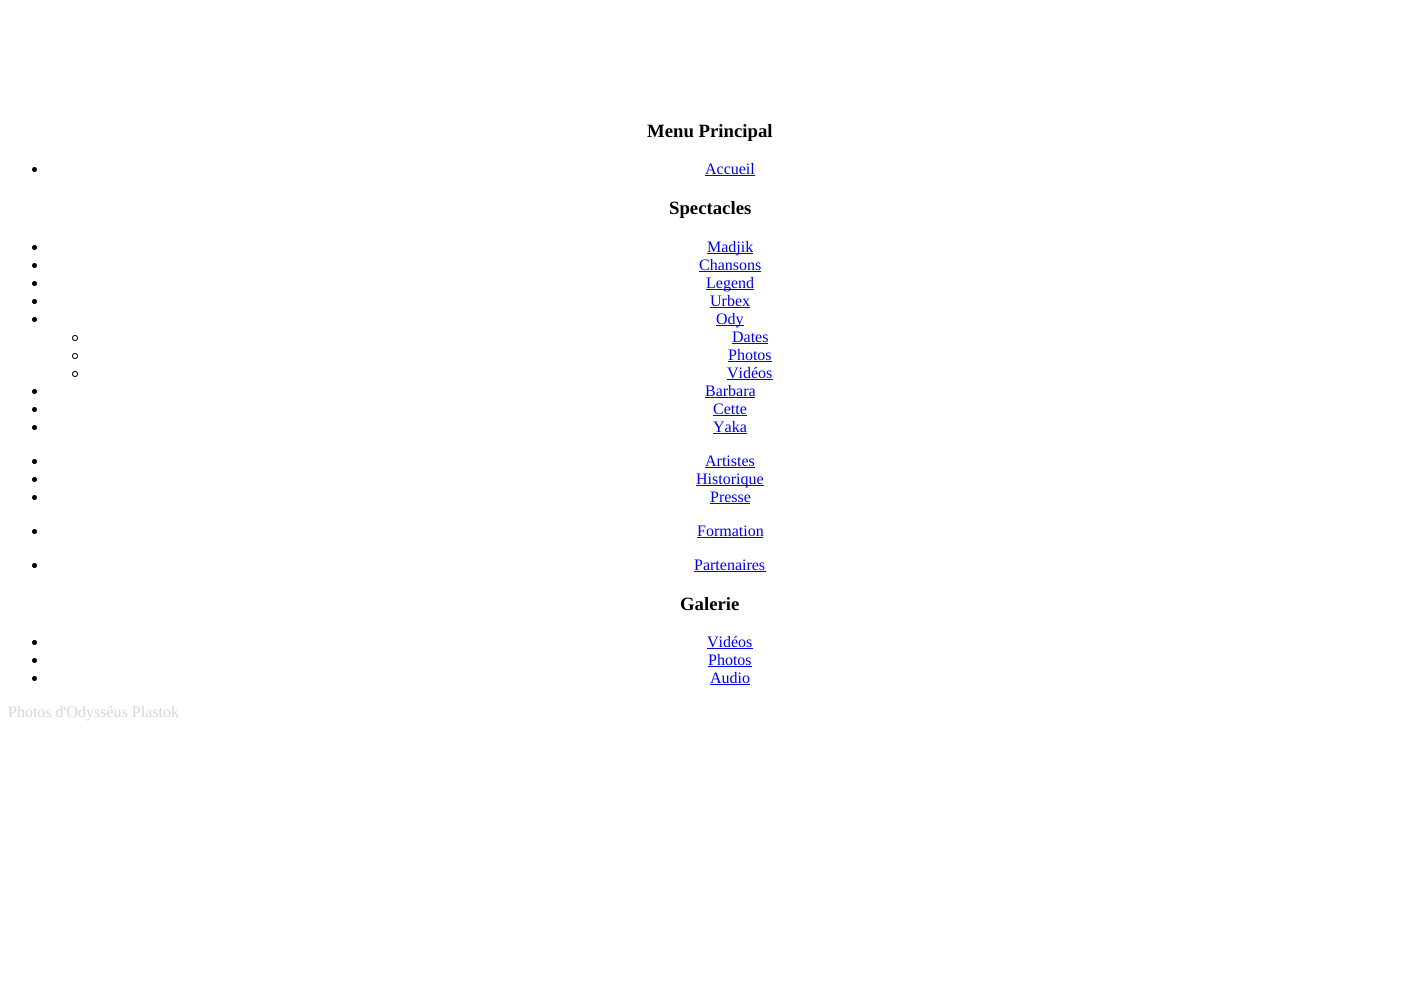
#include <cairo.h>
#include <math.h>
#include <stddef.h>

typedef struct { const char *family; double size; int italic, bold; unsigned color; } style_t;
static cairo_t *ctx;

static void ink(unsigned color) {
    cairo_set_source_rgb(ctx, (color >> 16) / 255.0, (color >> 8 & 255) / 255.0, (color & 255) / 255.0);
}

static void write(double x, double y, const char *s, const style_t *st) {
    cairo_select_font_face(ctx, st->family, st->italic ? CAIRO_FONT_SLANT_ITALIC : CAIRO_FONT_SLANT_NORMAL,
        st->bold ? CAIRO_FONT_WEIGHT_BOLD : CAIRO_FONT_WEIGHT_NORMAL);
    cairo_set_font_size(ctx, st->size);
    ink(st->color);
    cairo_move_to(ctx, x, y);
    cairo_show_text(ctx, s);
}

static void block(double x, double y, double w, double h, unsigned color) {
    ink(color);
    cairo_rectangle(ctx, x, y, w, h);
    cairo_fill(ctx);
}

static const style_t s1 = {"Liberation Serif", 18.75, 0, 1, 0x000000};
static const style_t s2 = {"Liberation Serif", 16, 0, 0, 0x0000ee};
static const style_t s3 = {"Liberation Serif", 16, 0, 0, 0xd5d5d5};

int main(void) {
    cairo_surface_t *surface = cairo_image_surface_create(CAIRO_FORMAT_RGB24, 1420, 998);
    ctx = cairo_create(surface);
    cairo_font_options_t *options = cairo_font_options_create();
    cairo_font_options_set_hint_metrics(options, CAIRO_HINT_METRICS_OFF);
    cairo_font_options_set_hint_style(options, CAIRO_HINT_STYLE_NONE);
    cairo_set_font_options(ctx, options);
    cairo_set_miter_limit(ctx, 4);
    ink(0xffffff);
    cairo_paint(ctx);
    write(647, 137, "Menu Principal", &s1);
    cairo_new_path(ctx);
    cairo_arc(ctx, 34.5, 169.5, 2.5, 0, 2 * M_PI);
    cairo_fill(ctx);
    write(705, 174, "Accueil", &s2);
    block(705, 175, 50, 1, 0x0000ee);
    write(669, 214, "Spectacles", &s1);
    cairo_new_path(ctx);
    cairo_arc(ctx, 34.5, 247.5, 2.5, 0, 2 * M_PI);
    cairo_fill(ctx);
    block(707, 253, 46, 1, 0x0000ee);
    write(707, 252, "Madjik", &s2);
    ink(0x000000);
    cairo_new_path(ctx);
    cairo_arc(ctx, 34.5, 265.5, 2.5, 0, 2 * M_PI);
    cairo_fill(ctx);
    write(699, 270, "Chansons", &s2);
    block(699, 271, 62, 1, 0x0000ee);
    ink(0x000000);
    cairo_new_path(ctx);
    cairo_arc(ctx, 34.5, 283.5, 2.5, 0, 2 * M_PI);
    cairo_fill(ctx);
    block(706, 289, 48, 1, 0x0000ee);
    write(706, 288, "Legend", &s2);
    ink(0x000000);
    cairo_new_path(ctx);
    cairo_arc(ctx, 34.5, 301.5, 2.5, 0, 2 * M_PI);
    cairo_fill(ctx);
    write(710, 306, "Urbex", &s2);
    block(710, 307, 40, 1, 0x0000ee);
    ink(0x000000);
    cairo_new_path(ctx);
    cairo_arc(ctx, 34.5, 319.5, 2.5, 0, 2 * M_PI);
    cairo_fill(ctx);
    block(716, 325, 28, 1, 0x0000ee);
    write(716, 324, "Ody", &s2);
    cairo_new_path(ctx);
    cairo_arc(ctx, 75, 338, 2.5, 0, 2 * M_PI);
    ink(0x000000);
    cairo_set_line_width(ctx, 1);
    cairo_stroke(ctx);
    write(732, 342, "Dates", &s2);
    block(732, 343, 36, 1, 0x0000ee);
    cairo_new_path(ctx);
    cairo_arc(ctx, 75, 356, 2.5, 0, 2 * M_PI);
    ink(0x000000);
    cairo_stroke(ctx);
    write(728, 360, "Photos", &s2);
    block(728, 361, 44, 1, 0x0000ee);
    cairo_new_path(ctx);
    cairo_arc(ctx, 75, 374, 2.5, 0, 2 * M_PI);
    ink(0x000000);
    cairo_stroke(ctx);
    write(727, 378, "Vidéos", &s2);
    block(727, 379, 46, 1, 0x0000ee);
    ink(0x000000);
    cairo_new_path(ctx);
    cairo_arc(ctx, 34.5, 391.5, 2.5, 0, 2 * M_PI);
    cairo_fill(ctx);
    write(705, 396, "Barbara", &s2);
    block(705, 397, 50, 1, 0x0000ee);
    ink(0x000000);
    cairo_new_path(ctx);
    cairo_arc(ctx, 34.5, 409.5, 2.5, 0, 2 * M_PI);
    cairo_fill(ctx);
    write(713, 414, "Cette", &s2);
    block(713, 415, 34, 1, 0x0000ee);
    ink(0x000000);
    cairo_new_path(ctx);
    cairo_arc(ctx, 34.5, 427.5, 2.5, 0, 2 * M_PI);
    cairo_fill(ctx);
    write(713, 432, "Yaka", &s2);
    block(713, 433, 34, 1, 0x0000ee);
    ink(0x000000);
    cairo_new_path(ctx);
    cairo_arc(ctx, 34.5, 461.5, 2.5, 0, 2 * M_PI);
    cairo_fill(ctx);
    write(705, 466, "Artistes", &s2);
    block(705, 467, 50, 1, 0x0000ee);
    ink(0x000000);
    cairo_new_path(ctx);
    cairo_arc(ctx, 34.5, 479.5, 2.5, 0, 2 * M_PI);
    cairo_fill(ctx);
    block(696, 485, 68, 1, 0x0000ee);
    write(696, 484, "Historique", &s2);
    ink(0x000000);
    cairo_new_path(ctx);
    cairo_arc(ctx, 34.5, 497.5, 2.5, 0, 2 * M_PI);
    cairo_fill(ctx);
    write(710, 502, "Presse", &s2);
    block(710, 503, 40, 1, 0x0000ee);
    ink(0x000000);
    cairo_new_path(ctx);
    cairo_arc(ctx, 34.5, 531.5, 2.5, 0, 2 * M_PI);
    cairo_fill(ctx);
    write(697, 536, "Formation", &s2);
    block(697, 537, 66, 1, 0x0000ee);
    ink(0x000000);
    cairo_new_path(ctx);
    cairo_arc(ctx, 34.5, 565.5, 2.5, 0, 2 * M_PI);
    cairo_fill(ctx);
    write(694, 570, "Partenaires", &s2);
    block(694, 571, 72, 1, 0x0000ee);
    write(680, 610, "Galerie", &s1);
    cairo_new_path(ctx);
    cairo_arc(ctx, 34.5, 642.5, 2.5, 0, 2 * M_PI);
    cairo_fill(ctx);
    write(707, 647, "Vidéos", &s2);
    block(707, 648, 46, 1, 0x0000ee);
    ink(0x000000);
    cairo_new_path(ctx);
    cairo_arc(ctx, 34.5, 660.5, 2.5, 0, 2 * M_PI);
    cairo_fill(ctx);
    write(708, 665, "Photos", &s2);
    block(708, 666, 44, 1, 0x0000ee);
    ink(0x000000);
    cairo_new_path(ctx);
    cairo_arc(ctx, 34.5, 678.5, 2.5, 0, 2 * M_PI);
    cairo_fill(ctx);
    write(710, 683, "Audio", &s2);
    block(710, 684, 40, 1, 0x0000ee);
    write(8, 717, "Photos d'Odysséus Plastok", &s3);
    cairo_surface_write_to_png(surface, "screenshot.png");
    cairo_font_options_destroy(options);
    cairo_destroy(ctx);
    cairo_surface_destroy(surface);
    return 0;
}
